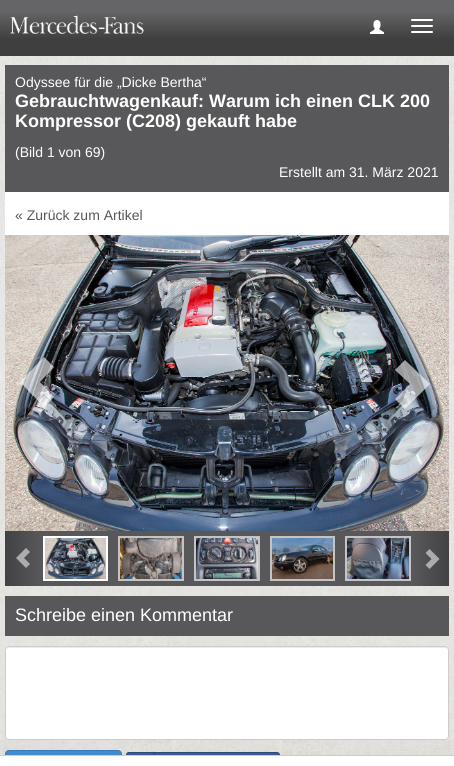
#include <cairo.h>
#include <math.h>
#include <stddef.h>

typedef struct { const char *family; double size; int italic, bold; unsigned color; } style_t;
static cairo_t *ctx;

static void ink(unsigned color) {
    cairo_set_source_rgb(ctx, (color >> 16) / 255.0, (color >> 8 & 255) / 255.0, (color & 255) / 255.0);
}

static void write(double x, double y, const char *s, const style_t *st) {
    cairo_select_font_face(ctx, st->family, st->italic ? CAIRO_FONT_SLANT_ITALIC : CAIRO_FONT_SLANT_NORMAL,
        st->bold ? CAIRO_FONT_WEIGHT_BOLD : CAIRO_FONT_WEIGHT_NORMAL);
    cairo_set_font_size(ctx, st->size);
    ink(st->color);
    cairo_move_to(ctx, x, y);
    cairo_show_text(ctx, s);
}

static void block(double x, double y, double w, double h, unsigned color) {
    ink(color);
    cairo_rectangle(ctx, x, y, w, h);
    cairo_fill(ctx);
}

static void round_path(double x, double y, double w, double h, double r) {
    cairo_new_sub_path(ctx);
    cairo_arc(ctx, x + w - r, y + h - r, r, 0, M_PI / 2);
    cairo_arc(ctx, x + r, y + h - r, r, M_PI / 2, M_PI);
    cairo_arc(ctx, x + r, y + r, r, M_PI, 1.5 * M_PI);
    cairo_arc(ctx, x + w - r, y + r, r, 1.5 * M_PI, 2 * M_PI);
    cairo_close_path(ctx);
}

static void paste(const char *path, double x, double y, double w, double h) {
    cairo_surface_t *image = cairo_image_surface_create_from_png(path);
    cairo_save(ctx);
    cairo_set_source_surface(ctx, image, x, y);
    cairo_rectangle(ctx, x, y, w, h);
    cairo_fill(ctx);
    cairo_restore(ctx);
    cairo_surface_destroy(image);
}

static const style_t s1 = {"Liberation Sans", 14, 0, 0, 0xffffff};
static const style_t s2 = {"Liberation Sans", 18, 0, 1, 0xffffff};
static const style_t s3 = {"Liberation Sans", 14, 0, 0, 0x58585a};
static const style_t s4 = {"Liberation Sans", 18, 0, 0, 0xffffff};

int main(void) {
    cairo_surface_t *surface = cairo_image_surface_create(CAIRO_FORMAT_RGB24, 454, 766);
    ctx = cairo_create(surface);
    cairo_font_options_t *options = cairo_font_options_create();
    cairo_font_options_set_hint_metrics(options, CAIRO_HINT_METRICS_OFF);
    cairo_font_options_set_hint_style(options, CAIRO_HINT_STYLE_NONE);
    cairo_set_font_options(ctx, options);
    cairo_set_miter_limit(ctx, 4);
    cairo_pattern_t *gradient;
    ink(0xffffff);
    cairo_paint(ctx);
    paste("pic1.png", 0, 56, 454, 699);
    gradient = cairo_pattern_create_linear(227, 0, 227, 56);
    cairo_pattern_add_color_stop_rgba(gradient, 0.2, 0.396, 0.396, 0.404, 1);
    cairo_pattern_add_color_stop_rgba(gradient, 0.7, 0.247, 0.247, 0.251, 1);
    cairo_set_source(ctx, gradient);
    cairo_pattern_destroy(gradient);
    cairo_rectangle(ctx, 0, 0, 454, 56);
    cairo_fill(ctx);
    paste("pic2.png", 10, 15, 134, 19);
    paste("pic3.png", 370, 20, 14, 14);
    ink(0xffffff);
    round_path(411, 19, 22, 2, 1);
    cairo_fill(ctx);
    round_path(411, 25, 22, 2, 1);
    cairo_fill(ctx);
    round_path(411, 31, 22, 2, 1);
    cairo_fill(ctx);
    block(5, 65, 444, 127, 0x58585a);
    block(5, 192, 444, 43, 0xffffff);
    write(15, 87, "Odyssee für die „Dicke Bertha“", &s1);
    write(15, 107, "Gebrauchtwagenkauf: Warum ich einen CLK 200", &s2);
    write(15, 127, "Kompressor (C208) gekauft habe", &s2);
    write(15, 157, "(Bild 1 von 69)", &s1);
    write(279, 177, "Erstellt am 31. März 2021", &s1);
    write(15, 220, "« Zurück zum Artikel", &s3);
    paste("pic4.png", 5, 235, 444, 296);
    cairo_set_source_rgba(ctx, 1, 1, 1, 0.6);
    cairo_new_path(ctx);
    cairo_move_to(ctx, 20, 382);
    cairo_line_to(ctx, 44, 407);
    cairo_line_to(ctx, 54, 397);
    cairo_line_to(ctx, 40, 382);
    cairo_line_to(ctx, 54, 367);
    cairo_line_to(ctx, 44, 357);
    cairo_close_path(ctx);
    cairo_fill(ctx);
    cairo_new_path(ctx);
    cairo_move_to(ctx, 395, 399);
    cairo_line_to(ctx, 410, 384);
    cairo_line_to(ctx, 395, 370);
    cairo_line_to(ctx, 405, 360);
    cairo_line_to(ctx, 430, 384);
    cairo_line_to(ctx, 405, 409);
    cairo_close_path(ctx);
    cairo_fill(ctx);
    block(41, 531, 372, 55, 0x58585a);
    gradient = cairo_pattern_create_linear(5, 559, 41, 559);
    cairo_pattern_add_color_stop_rgba(gradient, 0, 0.259, 0.259, 0.267, 1);
    cairo_pattern_add_color_stop_rgba(gradient, 1, 0.345, 0.345, 0.353, 1);
    cairo_set_source(ctx, gradient);
    cairo_pattern_destroy(gradient);
    cairo_rectangle(ctx, 5, 531, 36, 55);
    cairo_fill(ctx);
    ink(0xacacad);
    cairo_new_path(ctx);
    cairo_move_to(ctx, 16, 558);
    cairo_line_to(ctx, 26, 568);
    cairo_line_to(ctx, 30, 564);
    cairo_line_to(ctx, 24, 558);
    cairo_line_to(ctx, 30, 552);
    cairo_line_to(ctx, 26, 548);
    cairo_close_path(ctx);
    cairo_fill(ctx);
    cairo_rectangle(ctx, 44, 537, 63, 43);
    ink(0xffffff);
    cairo_stroke(ctx);
    paste("pic5.png", 45, 538, 61, 41);
    cairo_rectangle(ctx, 119, 537, 64, 43);
    ink(0xc4c4c4);
    cairo_stroke(ctx);
    paste("pic6.png", 120, 538, 62, 41);
    cairo_rectangle(ctx, 195, 537, 64, 43);
    cairo_stroke(ctx);
    paste("pic7.png", 196, 538, 62, 41);
    cairo_rectangle(ctx, 271, 537, 63, 43);
    cairo_stroke(ctx);
    paste("pic8.png", 272, 538, 61, 41);
    cairo_rectangle(ctx, 346, 537, 64, 43);
    cairo_stroke(ctx);
    paste("pic9.png", 347, 538, 62, 41);
    gradient = cairo_pattern_create_linear(413, 559, 449, 559);
    cairo_pattern_add_color_stop_rgba(gradient, 0, 0.345, 0.345, 0.353, 1);
    cairo_pattern_add_color_stop_rgba(gradient, 1, 0.259, 0.259, 0.267, 1);
    cairo_set_source(ctx, gradient);
    cairo_pattern_destroy(gradient);
    cairo_rectangle(ctx, 413, 531, 36, 55);
    cairo_fill(ctx);
    ink(0xacacad);
    cairo_new_path(ctx);
    cairo_move_to(ctx, 425.5, 565);
    cairo_line_to(ctx, 431.5, 559);
    cairo_line_to(ctx, 425.5, 553);
    cairo_line_to(ctx, 429.5, 549);
    cairo_line_to(ctx, 439.5, 559);
    cairo_line_to(ctx, 429.5, 569);
    cairo_close_path(ctx);
    cairo_fill(ctx);
    block(5, 596, 444, 40, 0x58585a);
    write(15, 621, "Schreibe einen Kommentar", &s4);
    round_path(5, 646, 444, 94, 4);
    cairo_fill(ctx);
    ink(0xececec);
    cairo_new_path(ctx);
    cairo_move_to(ctx, 9, 648);
    cairo_line_to(ctx, 445, 648);
    cairo_curve_to(ctx, 447, 648, 448, 649, 448, 651);
    cairo_curve_to(ctx, 448, 649, 447, 647, 445, 647);
    cairo_line_to(ctx, 8, 647);
    cairo_line_to(ctx, 6, 649);
    cairo_line_to(ctx, 6, 651);
    cairo_curve_to(ctx, 6, 649, 7, 648, 9, 648);
    cairo_close_path(ctx);
    cairo_fill(ctx);
    round_path(5.5, 646.5, 443, 93, 3.5);
    ink(0xcccccc);
    cairo_set_line_width(ctx, 1);
    cairo_stroke(ctx);
    ink(0x428bca);
    round_path(5.5, 750.5, 116, 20, 3.5);
    cairo_fill_preserve(ctx);
    ink(0x357ebd);
    cairo_stroke(ctx);
    ink(0x3b5998);
    round_path(126, 752, 154, 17, 3);
    cairo_fill(ctx);
    round_path(126.5, 752.5, 153, 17, 2.5);
    cairo_set_source_rgba(ctx, 0, 0, 0, 0.2);
    cairo_stroke(ctx);
    block(154, 753, 1, 2, 0x2f477a);
    block(5, 756, 275, 10, 0xffffff);
    block(0, 755, 454, 1, 0xcccccc);
    cairo_surface_write_to_png(surface, "screenshot.png");
    cairo_font_options_destroy(options);
    cairo_destroy(ctx);
    cairo_surface_destroy(surface);
    return 0;
}
